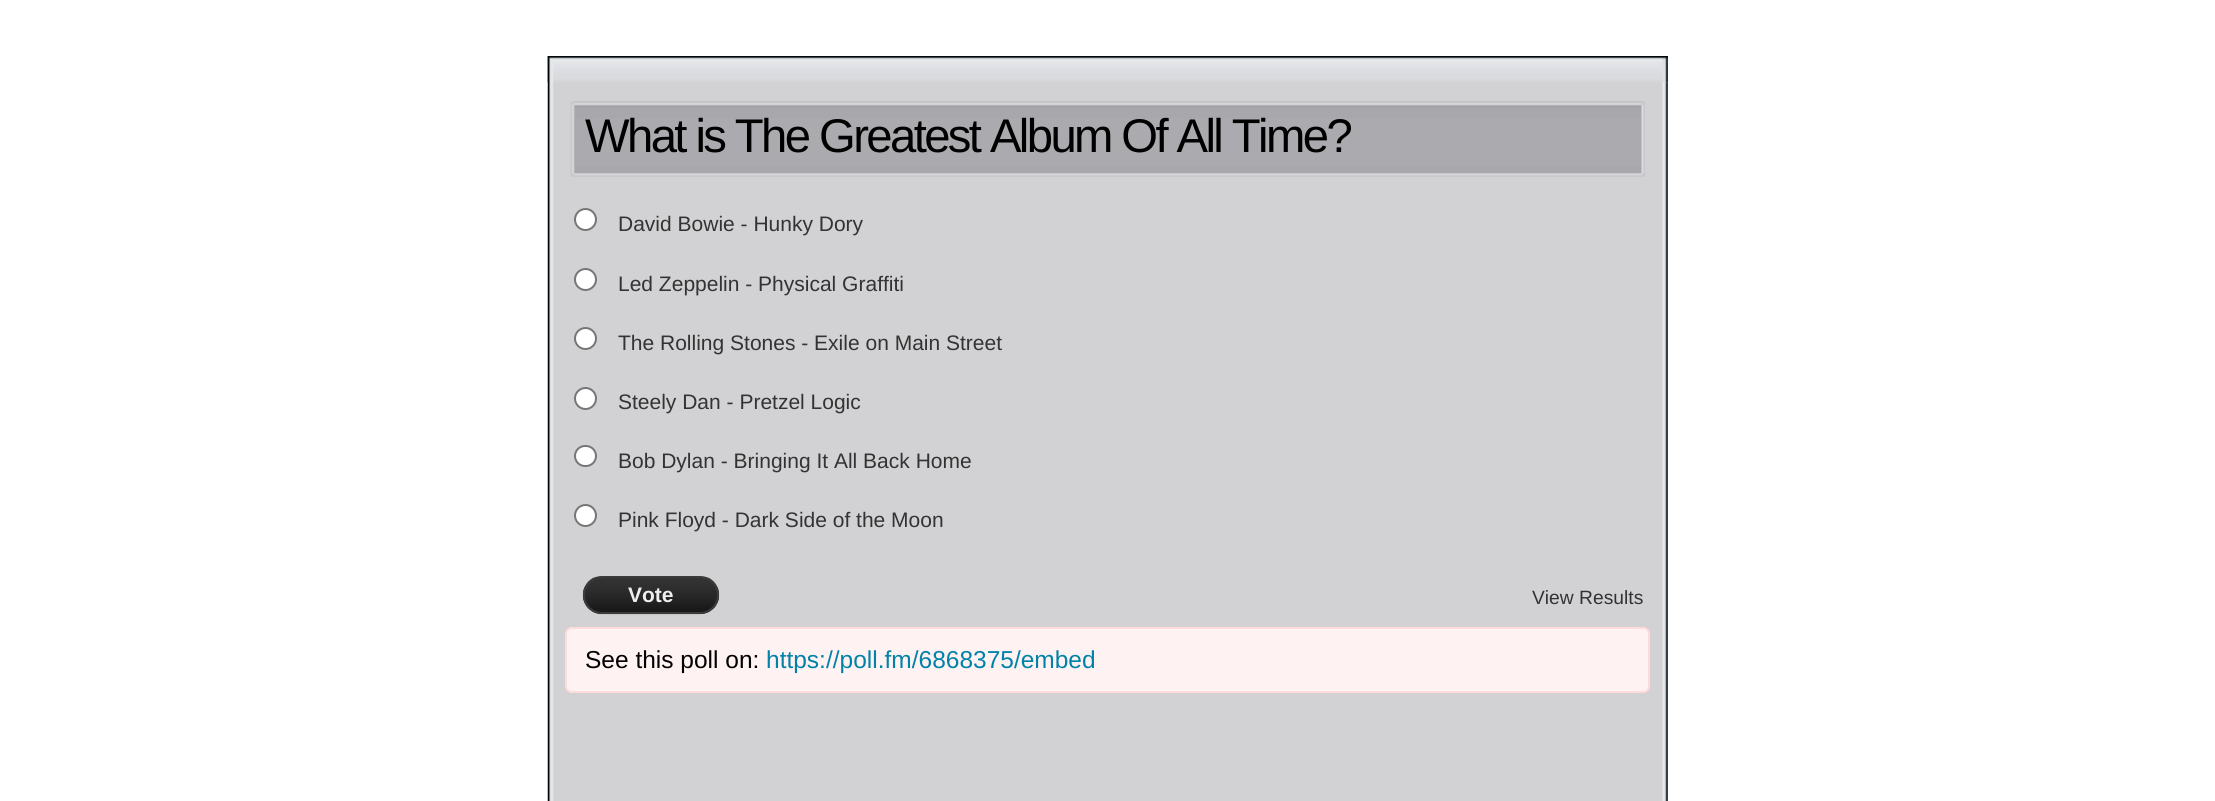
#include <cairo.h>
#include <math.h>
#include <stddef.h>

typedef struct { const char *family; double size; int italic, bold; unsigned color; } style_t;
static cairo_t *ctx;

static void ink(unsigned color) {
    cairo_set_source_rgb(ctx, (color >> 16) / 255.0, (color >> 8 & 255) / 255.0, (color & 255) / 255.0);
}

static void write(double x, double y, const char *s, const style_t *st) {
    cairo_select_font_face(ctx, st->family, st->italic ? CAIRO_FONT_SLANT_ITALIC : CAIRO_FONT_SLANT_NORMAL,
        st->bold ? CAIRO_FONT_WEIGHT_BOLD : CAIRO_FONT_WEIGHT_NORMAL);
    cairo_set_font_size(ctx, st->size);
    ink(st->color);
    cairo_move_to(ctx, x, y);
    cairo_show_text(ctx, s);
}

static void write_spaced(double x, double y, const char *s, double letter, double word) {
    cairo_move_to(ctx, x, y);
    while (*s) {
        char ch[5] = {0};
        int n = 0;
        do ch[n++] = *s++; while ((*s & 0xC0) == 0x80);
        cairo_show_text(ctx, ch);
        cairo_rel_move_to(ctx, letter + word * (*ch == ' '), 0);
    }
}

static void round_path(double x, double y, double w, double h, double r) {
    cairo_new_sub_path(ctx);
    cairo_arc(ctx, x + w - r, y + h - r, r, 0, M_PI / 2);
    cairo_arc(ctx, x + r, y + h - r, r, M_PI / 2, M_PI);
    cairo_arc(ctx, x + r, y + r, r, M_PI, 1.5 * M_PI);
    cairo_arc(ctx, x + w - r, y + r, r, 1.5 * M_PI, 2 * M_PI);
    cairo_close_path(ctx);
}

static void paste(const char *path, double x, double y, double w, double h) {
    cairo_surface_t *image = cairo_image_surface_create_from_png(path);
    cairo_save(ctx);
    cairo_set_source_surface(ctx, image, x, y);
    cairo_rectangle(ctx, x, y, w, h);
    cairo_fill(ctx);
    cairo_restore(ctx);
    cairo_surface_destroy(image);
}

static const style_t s1 = {"Liberation Sans", 21, 0, 0, 0x333333};
static const style_t s2 = {"Liberation Sans", 21, 0, 1, 0xeeeeee};
static const style_t s3 = {"Liberation Sans", 19.25, 0, 0, 0x333333};
static const style_t s4 = {"Liberation Sans", 24.5, 0, 0, 0x000000};
static const style_t s5 = {"Liberation Sans", 24.5, 0, 0, 0x0182a8};

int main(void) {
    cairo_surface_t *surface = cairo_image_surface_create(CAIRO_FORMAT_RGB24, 2215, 801);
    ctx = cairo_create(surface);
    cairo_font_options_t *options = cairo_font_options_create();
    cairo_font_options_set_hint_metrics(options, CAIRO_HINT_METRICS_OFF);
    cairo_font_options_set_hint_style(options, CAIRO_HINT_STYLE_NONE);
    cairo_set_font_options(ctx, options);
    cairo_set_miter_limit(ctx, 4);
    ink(0xffffff);
    cairo_paint(ctx);
    paste("pic1.png", 547, 56, 1121, 745);
    paste("pic2.png", 1662, 56, 6, 745);
    paste("pic3.png", 547, 56, 1121, 27);
    paste("pic4.png", 1662, 56, 6, 27);
    paste("pic5.png", 570, 101, 1075, 76);
    paste("pic6.png", 1640, 101, 5, 75);
    paste("pic7.png", 572, 101, 1073, 18);
    paste("pic8.png", 1640, 101, 5, 18);
    cairo_select_font_face(ctx, "Liberation Sans", CAIRO_FONT_SLANT_NORMAL, CAIRO_FONT_WEIGHT_NORMAL);
    cairo_set_font_size(ctx, 47.25);
    ink(0x000000);
    write_spaced(585, 152, "What is The Greatest Album Of All Time?", -2.6, 0);
    ink(0xffffff);
    cairo_new_path(ctx);
    cairo_arc(ctx, 585.5, 219.5, 10.5, 0, 2 * M_PI);
    cairo_fill_preserve(ctx);
    ink(0x767676);
    cairo_stroke(ctx);
    write(618, 231, "David Bowie - Hunky Dory", &s1);
    ink(0xffffff);
    cairo_new_path(ctx);
    cairo_arc(ctx, 585.5, 279.5, 10.5, 0, 2 * M_PI);
    cairo_fill_preserve(ctx);
    ink(0x767676);
    cairo_stroke(ctx);
    write(618, 291, "Led Zeppelin - Physical Graffiti", &s1);
    ink(0xffffff);
    cairo_new_path(ctx);
    cairo_arc(ctx, 585.5, 338.5, 10.5, 0, 2 * M_PI);
    cairo_fill_preserve(ctx);
    ink(0x767676);
    cairo_stroke(ctx);
    write(618, 350, "The Rolling Stones - Exile on Main Street", &s1);
    ink(0xffffff);
    cairo_new_path(ctx);
    cairo_arc(ctx, 585.5, 398.5, 10.5, 0, 2 * M_PI);
    cairo_fill_preserve(ctx);
    ink(0x767676);
    cairo_stroke(ctx);
    write(618, 409, "Steely Dan - Pretzel Logic", &s1);
    ink(0xffffff);
    round_path(575, 446, 21, 20, 10);
    cairo_fill_preserve(ctx);
    ink(0x767676);
    cairo_stroke(ctx);
    write(618, 468, "Bob Dylan - Bringing It All Back Home", &s1);
    ink(0xffffff);
    cairo_new_path(ctx);
    cairo_arc(ctx, 585.5, 515.5, 10.5, 0, 2 * M_PI);
    cairo_fill_preserve(ctx);
    ink(0x767676);
    cairo_stroke(ctx);
    write(618, 527, "Pink Floyd - Dark Side of the Moon", &s1);
    paste("pic9.png", 582, 577, 138, 38);
    round_path(584, 577, 134, 36, 18);
    ink(0x3b3b3b);
    cairo_stroke(ctx);
    write(628, 602, "Vote", &s2);
    write(1532, 604, "View Results", &s3);
    ink(0xfff2f2);
    round_path(566, 628, 1083, 64, 6);
    cairo_fill_preserve(ctx);
    ink(0xffdcdc);
    cairo_stroke(ctx);
    write(585, 668, "See this poll on:", &s4);
    write(766, 668, "https://poll.fm/6868375/embed", &s5);
    cairo_surface_write_to_png(surface, "screenshot.png");
    cairo_font_options_destroy(options);
    cairo_destroy(ctx);
    cairo_surface_destroy(surface);
    return 0;
}
